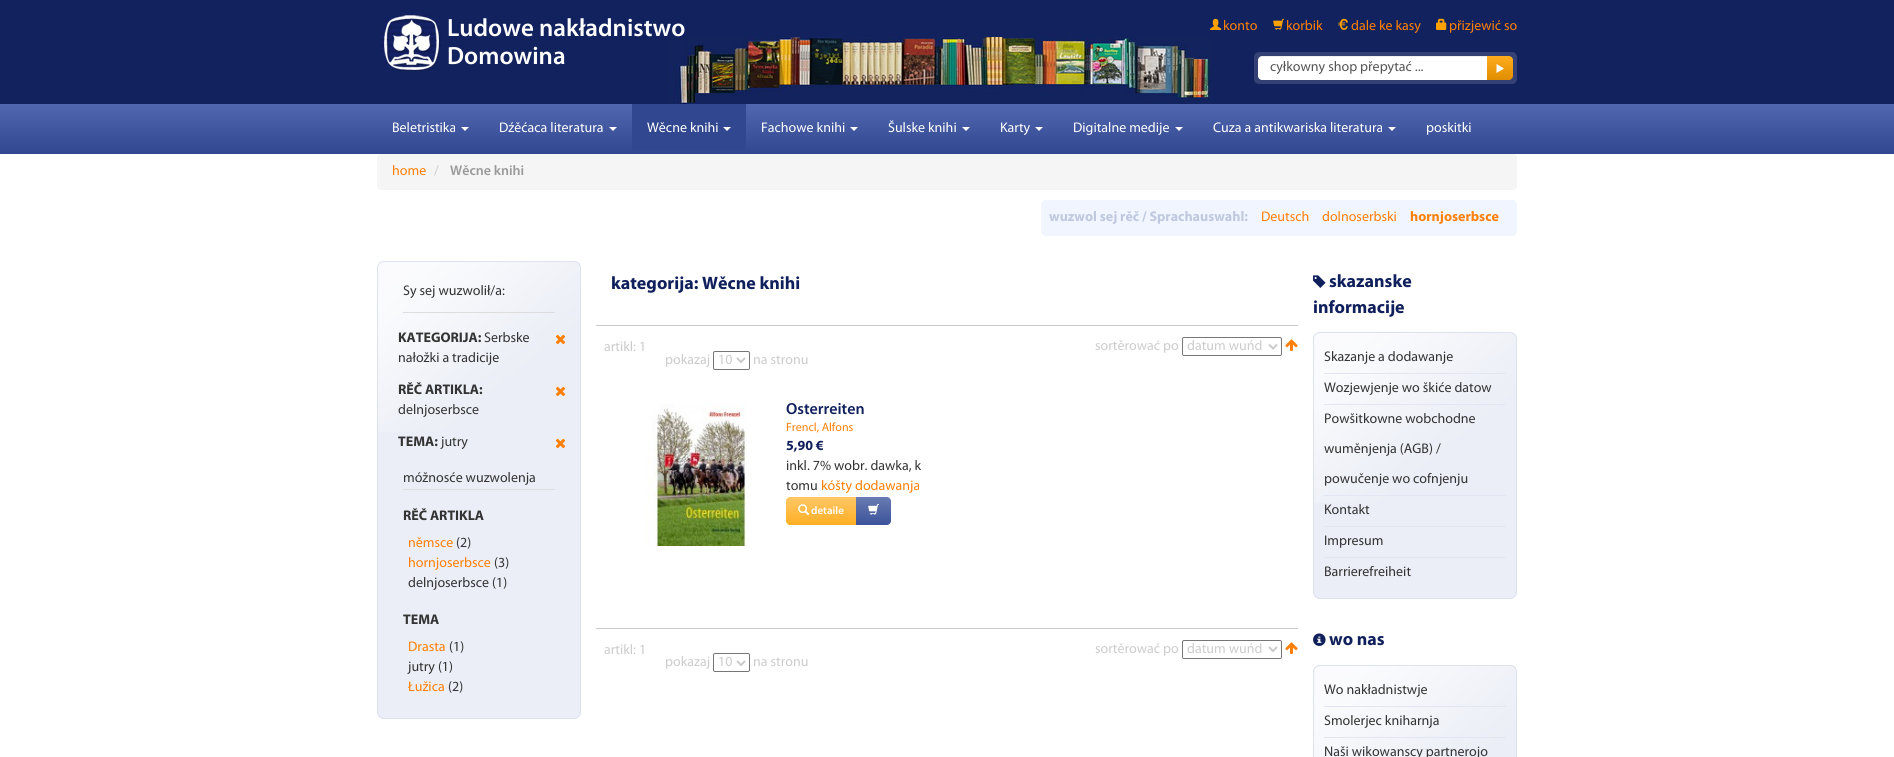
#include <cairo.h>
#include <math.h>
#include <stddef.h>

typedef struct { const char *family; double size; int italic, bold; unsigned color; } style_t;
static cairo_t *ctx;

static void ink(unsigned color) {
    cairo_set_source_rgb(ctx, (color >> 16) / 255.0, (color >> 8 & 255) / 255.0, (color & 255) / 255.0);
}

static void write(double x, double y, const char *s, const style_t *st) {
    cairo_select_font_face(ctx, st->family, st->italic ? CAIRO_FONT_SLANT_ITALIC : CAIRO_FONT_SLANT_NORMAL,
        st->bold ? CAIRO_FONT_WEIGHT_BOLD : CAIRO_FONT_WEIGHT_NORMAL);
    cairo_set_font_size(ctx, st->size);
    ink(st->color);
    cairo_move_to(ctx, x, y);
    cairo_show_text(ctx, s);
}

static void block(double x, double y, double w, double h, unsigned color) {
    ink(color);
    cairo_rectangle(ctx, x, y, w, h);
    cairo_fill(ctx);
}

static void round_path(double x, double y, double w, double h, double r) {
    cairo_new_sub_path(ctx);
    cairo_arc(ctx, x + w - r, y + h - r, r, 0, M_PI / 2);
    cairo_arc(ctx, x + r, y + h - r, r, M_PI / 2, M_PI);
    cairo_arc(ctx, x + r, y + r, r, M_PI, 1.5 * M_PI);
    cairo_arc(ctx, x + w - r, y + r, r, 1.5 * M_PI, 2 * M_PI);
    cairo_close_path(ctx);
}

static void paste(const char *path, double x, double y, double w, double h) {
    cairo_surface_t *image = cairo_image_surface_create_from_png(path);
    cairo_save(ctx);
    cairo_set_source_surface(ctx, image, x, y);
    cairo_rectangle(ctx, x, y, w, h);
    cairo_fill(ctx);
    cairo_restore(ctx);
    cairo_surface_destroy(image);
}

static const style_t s1 = {"Myriad SemiBold", 25, 0, 0, 0xffffff};
static const style_t s2 = {"Myriad", 14, 0, 0, 0xff8005};
static const style_t s3 = {"Myriad", 14, 0, 0, 0x555555};
static const style_t s4 = {"Myriad", 14, 0, 0, 0xffffff};
static const style_t s5 = {"Myriad", 14, 0, 0, 0xcccccc};
static const style_t s6 = {"Myriad SemiBold", 14, 0, 0, 0x999999};
static const style_t s7 = {"Myriad", 14, 0, 1, 0xbfc8de};
static const style_t s8 = {"Myriad", 14, 0, 1, 0xff8005};
static const style_t s9 = {"Myriad", 14, 0, 0, 0x333333};
static const style_t s10 = {"Myriad", 14, 0, 1, 0x333333};
static const style_t s11 = {"Myriad", 18, 0, 1, 0x10205c};
static const style_t s12 = {"Myriad SemiBold", 16, 0, 0, 0x10205c};
static const style_t s13 = {"Myriad", 12, 0, 0, 0xff8005};
static const style_t s14 = {"Myriad", 14, 0, 1, 0x10205c};
static const style_t s15 = {"Myriad SemiBold", 11, 0, 0, 0xffffff};

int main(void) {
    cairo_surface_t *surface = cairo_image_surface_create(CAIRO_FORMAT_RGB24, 1894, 757);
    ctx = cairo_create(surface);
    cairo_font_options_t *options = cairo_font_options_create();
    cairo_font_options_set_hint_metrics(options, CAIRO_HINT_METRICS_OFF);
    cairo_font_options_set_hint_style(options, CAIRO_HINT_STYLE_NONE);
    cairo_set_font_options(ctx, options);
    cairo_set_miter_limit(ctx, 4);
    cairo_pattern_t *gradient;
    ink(0x12225e);
    cairo_paint(ctx);
    paste("pic1.png", 667, 37, 545, 67);
    paste("pic2.png", 380, 12, 62, 59);
    write(447, 36, "Ludowe nakładnistwo", &s1);
    write(447, 64, "Domowina", &s1);
    paste("pic3.png", 1210, 18, 12, 12);
    write(1223, 30, "konto", &s2);
    paste("pic4.png", 1273, 18, 12, 12);
    write(1286, 30, "korbik", &s2);
    paste("pic5.png", 1338, 18, 10, 12);
    write(1351, 30, "dale ke kasy", &s2);
    paste("pic6.png", 1436, 18, 11, 12);
    write(1449, 30, "přizjewić so", &s2);
    ink(0x334175);
    round_path(1254, 52, 263, 32, 5);
    cairo_fill(ctx);
    ink(0xffffff);
    cairo_new_path(ctx);
    cairo_move_to(ctx, 1262, 56);
    cairo_line_to(ctx, 1488, 56);
    cairo_line_to(ctx, 1488, 80);
    cairo_line_to(ctx, 1262, 80);
    cairo_curve_to(ctx, 1260, 80, 1258, 78, 1258, 76);
    cairo_line_to(ctx, 1258, 60);
    cairo_curve_to(ctx, 1258, 58, 1260, 56, 1262, 56);
    cairo_close_path(ctx);
    cairo_fill(ctx);
    cairo_set_source_rgba(ctx, 0, 0, 0, 0.07);
    cairo_new_path(ctx);
    cairo_move_to(ctx, 1262, 57);
    cairo_line_to(ctx, 1488, 57);
    cairo_line_to(ctx, 1488, 56);
    cairo_line_to(ctx, 1262, 56);
    cairo_curve_to(ctx, 1259, 56, 1258, 58, 1258, 61);
    cairo_curve_to(ctx, 1258, 59, 1260, 57, 1262, 57);
    cairo_close_path(ctx);
    cairo_fill(ctx);
    write(1270, 71, "cyłkowny shop přepytać ...", &s3);
    gradient = cairo_pattern_create_linear(1500, 56, 1500, 80);
    cairo_pattern_add_color_stop_rgba(gradient, 0, 0.996, 0.678, 0.118, 1);
    cairo_pattern_add_color_stop_rgba(gradient, 1, 0.878, 0.557, 0, 1);
    cairo_set_source(ctx, gradient);
    cairo_pattern_destroy(gradient);
    cairo_new_path(ctx);
    cairo_move_to(ctx, 1487, 56);
    cairo_line_to(ctx, 1509, 56);
    cairo_curve_to(ctx, 1511, 56, 1513, 58, 1513, 60);
    cairo_line_to(ctx, 1513, 76);
    cairo_curve_to(ctx, 1513, 78, 1511, 80, 1509, 80);
    cairo_line_to(ctx, 1487, 80);
    cairo_close_path(ctx);
    cairo_fill(ctx);
    ink(0xffffff);
    cairo_new_path(ctx);
    cairo_move_to(ctx, 1496.5, 73);
    cairo_line_to(ctx, 1504, 68.5);
    cairo_line_to(ctx, 1496.5, 64);
    cairo_close_path(ctx);
    cairo_fill(ctx);
    gradient = cairo_pattern_create_linear(947, 104, 947, 154);
    cairo_pattern_add_color_stop_rgba(gradient, 0, 0.318, 0.404, 0.686, 1);
    cairo_pattern_add_color_stop_rgba(gradient, 1, 0.192, 0.282, 0.565, 1);
    cairo_set_source(ctx, gradient);
    cairo_pattern_destroy(gradient);
    cairo_rectangle(ctx, 0, 104, 1894, 50);
    cairo_fill(ctx);
    write(392, 132, "Beletristika", &s4);
    cairo_new_path(ctx);
    cairo_move_to(ctx, 461, 127);
    cairo_line_to(ctx, 469, 127);
    cairo_line_to(ctx, 465, 131);
    cairo_close_path(ctx);
    cairo_fill(ctx);
    write(499, 132, "Dźěćaca literatura", &s4);
    cairo_new_path(ctx);
    cairo_move_to(ctx, 609, 127);
    cairo_line_to(ctx, 617, 127);
    cairo_line_to(ctx, 613, 131);
    cairo_close_path(ctx);
    cairo_fill(ctx);
    block(632, 104, 114, 46, 0x314890);
    write(647, 132, "Wěcne knihi", &s4);
    cairo_new_path(ctx);
    cairo_move_to(ctx, 723, 127);
    cairo_line_to(ctx, 731, 127);
    cairo_line_to(ctx, 727, 131);
    cairo_close_path(ctx);
    cairo_fill(ctx);
    write(761, 132, "Fachowe knihi", &s4);
    cairo_new_path(ctx);
    cairo_move_to(ctx, 850, 127);
    cairo_line_to(ctx, 858, 127);
    cairo_line_to(ctx, 854, 131);
    cairo_close_path(ctx);
    cairo_fill(ctx);
    write(888, 132, "Šulske knihi", &s4);
    cairo_new_path(ctx);
    cairo_move_to(ctx, 962, 127);
    cairo_line_to(ctx, 970, 127);
    cairo_line_to(ctx, 966, 131);
    cairo_close_path(ctx);
    cairo_fill(ctx);
    write(1000, 132, "Karty", &s4);
    cairo_new_path(ctx);
    cairo_move_to(ctx, 1035, 127);
    cairo_line_to(ctx, 1043, 127);
    cairo_line_to(ctx, 1039, 131);
    cairo_close_path(ctx);
    cairo_fill(ctx);
    write(1073, 132, "Digitalne medije", &s4);
    cairo_new_path(ctx);
    cairo_move_to(ctx, 1175, 127);
    cairo_line_to(ctx, 1183, 127);
    cairo_line_to(ctx, 1179, 131);
    cairo_close_path(ctx);
    cairo_fill(ctx);
    write(1213, 132, "Cuza a antikwariska literatura", &s4);
    cairo_new_path(ctx);
    cairo_move_to(ctx, 1388, 127);
    cairo_line_to(ctx, 1396, 127);
    cairo_line_to(ctx, 1392, 131);
    cairo_close_path(ctx);
    cairo_fill(ctx);
    write(1426, 132, "poskitki", &s4);
    block(0, 154, 1894, 603, 0xffffff);
    ink(0xf5f5f5);
    round_path(377, 154, 1140, 36, 4);
    cairo_fill(ctx);
    write(392, 175, "home", &s2);
    write(434, 175, "/", &s5);
    write(450, 175, "Wěcne knihi", &s6);
    ink(0xf0f5ff);
    round_path(1041, 200, 476, 36, 5);
    cairo_fill(ctx);
    write(1049, 221, "wuzwol sej rěč / Sprachauswahl:", &s7);
    write(1261, 221, "Deutsch", &s2);
    write(1322, 221, "dolnoserbski", &s2);
    write(1410, 221, "hornjoserbsce", &s8);
    ink(0xebeef6);
    round_path(377, 261, 204, 458, 7);
    cairo_fill(ctx);
    paste("pic7.png", 378, 262, 203, 170);
    round_path(377.5, 261.5, 203, 457, 6.5);
    ink(0xdde2ef);
    cairo_set_line_width(ctx, 1);
    cairo_stroke(ctx);
    block(403, 312, 152, 1, 0xdddddd);
    write(403, 295, "Sy sej wuzwolił/a:", &s9);
    write(398, 342, "KATEGORIJA:", &s10);
    write(484, 342, "Serbske", &s9);
    paste("pic8.png", 555, 334, 11, 11);
    write(398, 362, "nałožki a tradicije", &s9);
    write(398, 394, "RĚČ ARTIKLA:", &s10);
    paste("pic9.png", 555, 386, 11, 11);
    write(398, 414, "delnjoserbsce", &s9);
    write(398, 446, "TEMA:", &s10);
    write(441, 446, "jutry", &s9);
    paste("pic9.png", 555, 438, 11, 11);
    block(403, 489, 152, 1, 0xdddddd);
    write(403, 482, "móžnosće wuzwolenja", &s9);
    write(403, 520, "RĚČ ARTIKLA", &s10);
    write(408, 547, "němsce", &s2);
    write(456, 547, "(2)", &s9);
    write(408, 567, "hornjoserbsce", &s2);
    write(494, 567, "(3)", &s9);
    write(408, 587, "delnjoserbsce (1)", &s9);
    write(403, 624, "TEMA", &s10);
    write(408, 651, "Drasta", &s2);
    write(449, 651, "(1)", &s9);
    write(408, 671, "jutry (1)", &s9);
    write(408, 691, "Łužica", &s2);
    write(448, 691, "(2)", &s9);
    write(611, 289, "kategorija: Wěcne knihi", &s11);
    block(596, 325, 702, 1, 0xcacaca);
    write(604, 351, "artikl: 1", &s5);
    write(665, 364, "pokazaj", &s5);
    round_path(713.5, 351.5, 36, 18, 1.5);
    ink(0x767676);
    cairo_stroke(ctx);
    cairo_new_path(ctx);
    cairo_move_to(ctx, 737, 358);
    cairo_line_to(ctx, 741, 362);
    cairo_line_to(ctx, 745, 358);
    ink(0xcacaca);
    cairo_set_line_width(ctx, 2);
    cairo_stroke(ctx);
    write(718, 364, "10", &s5);
    write(753, 364, "na stronu", &s5);
    write(1095, 350, "sortěrować po", &s5);
    round_path(1182.5, 337.5, 99, 18, 1.5);
    ink(0x767676);
    cairo_set_line_width(ctx, 1);
    cairo_stroke(ctx);
    cairo_new_path(ctx);
    cairo_move_to(ctx, 1269, 344.5);
    cairo_line_to(ctx, 1273, 348.5);
    cairo_line_to(ctx, 1277, 344.5);
    ink(0xcacaca);
    cairo_set_line_width(ctx, 2);
    cairo_stroke(ctx);
    write(1187, 350, "datum wuńd", &s5);
    paste("pic10.png", 1285, 339, 13, 12);
    paste("pic11.png", 646, 404, 101, 142);
    write(786, 414, "Osterreiten", &s12);
    write(786, 431, "Frencl, Alfons", &s13);
    write(786, 450, "5,90 €", &s14);
    write(786, 470, "inkl. 7% wobr. dawka, k", &s9);
    write(786, 490, "tomu", &s9);
    write(821, 490, "kóšty dodawanja", &s2);
    gradient = cairo_pattern_create_linear(821, 497, 821, 525);
    cairo_pattern_add_color_stop_rgba(gradient, 0, 1, 0.78, 0.404, 1);
    cairo_pattern_add_color_stop_rgba(gradient, 1, 1, 0.686, 0.141, 1);
    cairo_set_source(ctx, gradient);
    cairo_pattern_destroy(gradient);
    cairo_new_path(ctx);
    cairo_move_to(ctx, 790, 497);
    cairo_line_to(ctx, 856, 497);
    cairo_line_to(ctx, 856, 525);
    cairo_line_to(ctx, 790, 525);
    cairo_curve_to(ctx, 788, 525, 786, 523, 786, 521);
    cairo_line_to(ctx, 786, 501);
    cairo_curve_to(ctx, 786, 499, 788, 497, 790, 497);
    cairo_close_path(ctx);
    cairo_fill(ctx);
    paste("pic12.png", 798, 504, 12, 12);
    write(811, 514, "detaile", &s15);
    gradient = cairo_pattern_create_linear(874, 497, 874, 525);
    cairo_pattern_add_color_stop_rgba(gradient, 0, 0.412, 0.482, 0.698, 1);
    cairo_pattern_add_color_stop_rgba(gradient, 1, 0.235, 0.325, 0.604, 1);
    cairo_set_source(ctx, gradient);
    cairo_pattern_destroy(gradient);
    cairo_new_path(ctx);
    cairo_move_to(ctx, 856, 497);
    cairo_line_to(ctx, 887, 497);
    cairo_curve_to(ctx, 889, 497, 891, 499, 891, 501);
    cairo_line_to(ctx, 891, 521);
    cairo_curve_to(ctx, 891, 523, 889, 525, 887, 525);
    cairo_line_to(ctx, 856, 525);
    cairo_close_path(ctx);
    cairo_fill(ctx);
    paste("pic13.png", 868, 504, 11, 11);
    block(596, 628, 702, 1, 0xcacaca);
    write(604, 654, "artikl: 1", &s5);
    write(665, 666, "pokazaj", &s5);
    round_path(713.5, 653.5, 36, 18, 1.5);
    ink(0x767676);
    cairo_set_line_width(ctx, 1);
    cairo_stroke(ctx);
    cairo_new_path(ctx);
    cairo_move_to(ctx, 737, 661);
    cairo_line_to(ctx, 741, 665);
    cairo_line_to(ctx, 745, 661);
    ink(0xcacaca);
    cairo_set_line_width(ctx, 2);
    cairo_stroke(ctx);
    write(718, 666, "10", &s5);
    write(753, 666, "na stronu", &s5);
    write(1095, 653, "sortěrować po", &s5);
    round_path(1182.5, 640.5, 99, 18, 1.5);
    ink(0x767676);
    cairo_set_line_width(ctx, 1);
    cairo_stroke(ctx);
    cairo_new_path(ctx);
    cairo_move_to(ctx, 1269, 647);
    cairo_line_to(ctx, 1273, 651);
    cairo_line_to(ctx, 1277, 647);
    ink(0xcacaca);
    cairo_set_line_width(ctx, 2);
    cairo_stroke(ctx);
    write(1187, 653, "datum wuńd", &s5);
    paste("pic10.png", 1285, 642, 13, 12);
    paste("pic14.png", 1313, 275, 13, 13);
    write(1329, 287, "skazanske", &s11);
    write(1313, 313, "informacije", &s11);
    ink(0xebeef6);
    round_path(1313, 332, 204, 267, 7);
    cairo_fill(ctx);
    paste("pic7.png", 1314, 333, 203, 170);
    round_path(1313.5, 332.5, 203, 266, 6.5);
    ink(0xdde2ef);
    cairo_set_line_width(ctx, 1);
    cairo_stroke(ctx);
    block(1324, 373, 182, 1, 0xe1e6f2);
    write(1324, 361, "Skazanje a dodawanje", &s9);
    block(1324, 404, 182, 1, 0xe1e6f2);
    write(1324, 392, "Wozjewjenje wo škiće datow", &s9);
    block(1324, 495, 182, 1, 0xe1e6f2);
    write(1324, 423, "Powšitkowne wobchodne", &s9);
    write(1324, 453, "wuměnjenja (AGB) /", &s9);
    write(1324, 483, "powučenje wo cofnjenju", &s9);
    block(1324, 526, 182, 1, 0xe1e6f2);
    write(1324, 514, "Kontakt", &s9);
    block(1324, 557, 182, 1, 0xe1e6f2);
    write(1324, 545, "Impresum", &s9);
    write(1324, 576, "Barrierefreiheit", &s9);
    paste("pic15.png", 1313, 633, 13, 13);
    write(1329, 645, "wo nas", &s11);
    ink(0xebeef6);
    round_path(1313, 665, 204, 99, 7);
    cairo_fill(ctx);
    paste("pic16.png", 1314, 666, 203, 91);
    round_path(1313.5, 665.5, 203, 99, 6.5);
    ink(0xdde2ef);
    cairo_stroke(ctx);
    block(1324, 706, 182, 1, 0xe1e6f2);
    write(1324, 694, "Wo nakładnistwje", &s9);
    block(1324, 737, 182, 1, 0xe1e6f2);
    write(1324, 725, "Smolerjec kniharnja", &s9);
    write(1324, 756, "Naši wikowanscy partnerojo", &s9);
    cairo_surface_write_to_png(surface, "screenshot.png");
    cairo_font_options_destroy(options);
    cairo_destroy(ctx);
    cairo_surface_destroy(surface);
    return 0;
}
